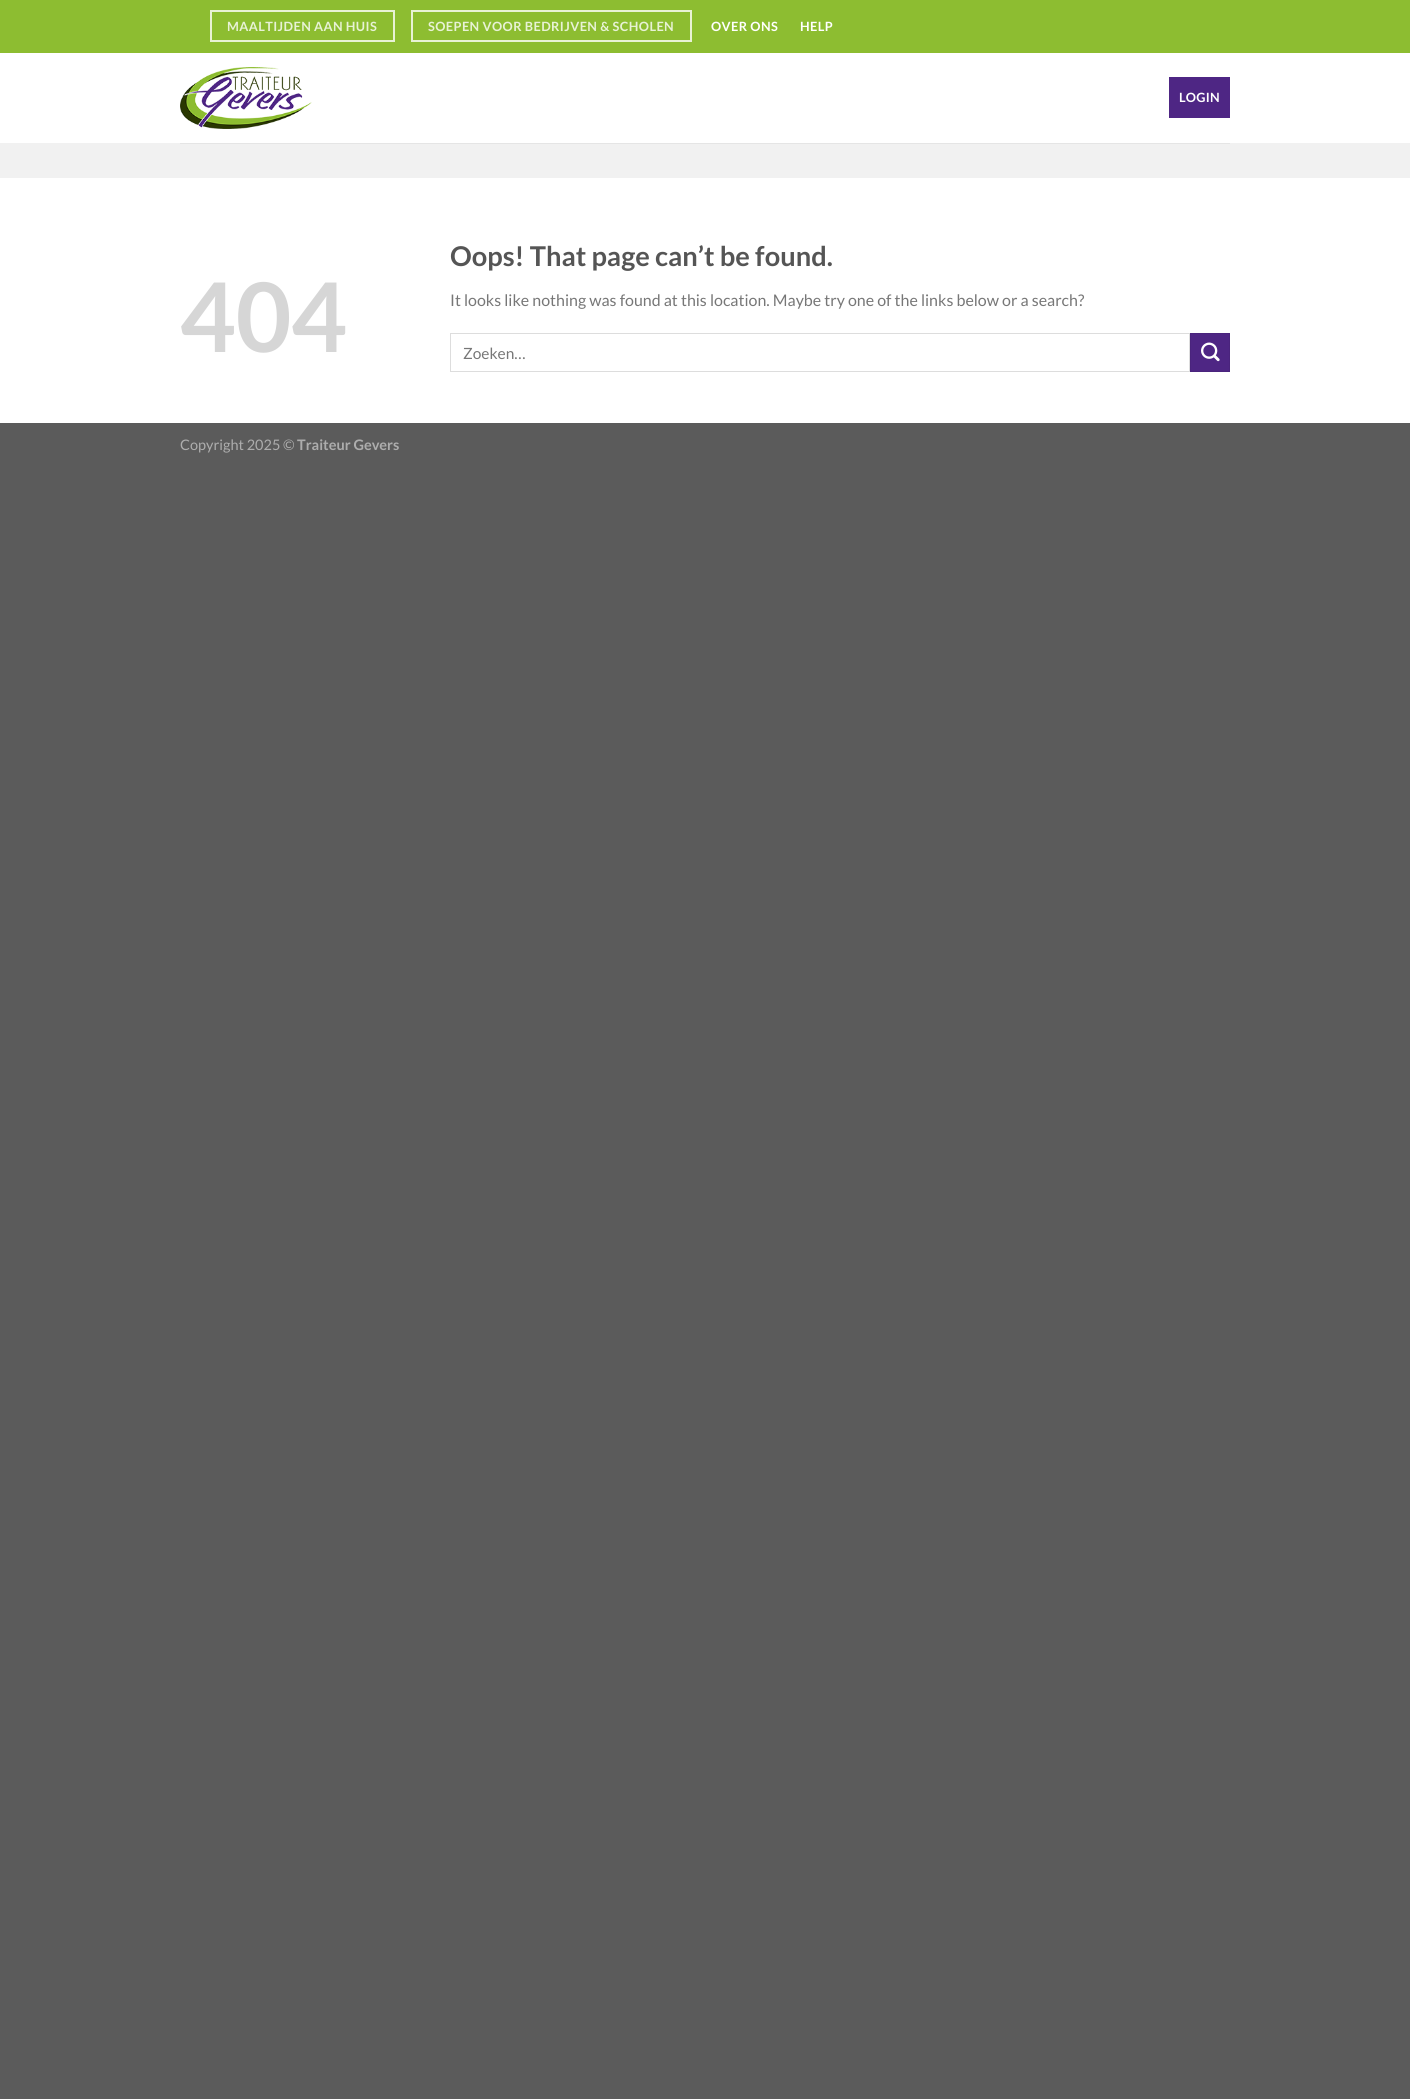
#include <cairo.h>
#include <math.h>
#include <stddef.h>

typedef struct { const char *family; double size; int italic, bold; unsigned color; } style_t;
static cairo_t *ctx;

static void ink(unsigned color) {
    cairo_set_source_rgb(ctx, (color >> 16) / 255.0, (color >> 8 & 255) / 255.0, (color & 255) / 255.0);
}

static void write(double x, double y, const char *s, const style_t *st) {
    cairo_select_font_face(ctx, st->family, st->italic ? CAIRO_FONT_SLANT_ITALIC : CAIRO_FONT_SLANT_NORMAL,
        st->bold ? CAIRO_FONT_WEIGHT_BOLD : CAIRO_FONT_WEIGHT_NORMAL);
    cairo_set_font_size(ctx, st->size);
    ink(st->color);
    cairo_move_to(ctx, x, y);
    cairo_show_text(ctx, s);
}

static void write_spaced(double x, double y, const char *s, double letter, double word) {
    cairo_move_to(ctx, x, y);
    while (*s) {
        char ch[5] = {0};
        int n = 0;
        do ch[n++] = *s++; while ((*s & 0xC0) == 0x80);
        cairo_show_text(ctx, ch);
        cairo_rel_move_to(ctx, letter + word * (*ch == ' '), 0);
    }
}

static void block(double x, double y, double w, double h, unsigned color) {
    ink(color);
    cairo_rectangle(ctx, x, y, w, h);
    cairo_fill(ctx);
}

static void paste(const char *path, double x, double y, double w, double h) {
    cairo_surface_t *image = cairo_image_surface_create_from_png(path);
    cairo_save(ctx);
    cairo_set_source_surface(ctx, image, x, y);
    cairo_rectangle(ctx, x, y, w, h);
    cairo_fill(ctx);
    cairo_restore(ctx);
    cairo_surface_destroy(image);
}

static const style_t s1 = {"Lato", 96, 0, 1, 0xd6d6d6};
static const style_t s2 = {"Lato", 27.25, 0, 1, 0x555555};
static const style_t s3 = {"Lato", 16, 0, 0, 0x777777};
static const style_t s4 = {"Lato", 15.5, 0, 0, 0x777777};
static const style_t s5 = {"Lato", 14.5, 0, 0, 0xadadad};
static const style_t s6 = {"Lato", 14.5, 0, 1, 0xadadad};

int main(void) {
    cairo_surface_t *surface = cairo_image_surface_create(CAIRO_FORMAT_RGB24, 1410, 2099);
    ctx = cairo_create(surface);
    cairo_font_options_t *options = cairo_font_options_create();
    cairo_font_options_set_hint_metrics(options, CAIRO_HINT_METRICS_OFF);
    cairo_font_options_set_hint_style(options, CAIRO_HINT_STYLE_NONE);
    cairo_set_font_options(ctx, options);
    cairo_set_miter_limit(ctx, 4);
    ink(0x5b5b5b);
    cairo_paint(ctx);
    block(0, 53, 1410, 370, 0xffffff);
    block(0, 0, 1410, 53, 0x8dbd31);
    cairo_rectangle(ctx, 211, 11, 183, 30);
    ink(0xe8f2d6);
    cairo_stroke(ctx);
    cairo_select_font_face(ctx, "Lato", CAIRO_FONT_SLANT_NORMAL, CAIRO_FONT_WEIGHT_BOLD);
    cairo_set_font_size(ctx, 12.75);
    write_spaced(227, 31, "MAALTIJDEN AAN HUIS", 0.4, 0);
    cairo_rectangle(ctx, 412, 11, 279, 30);
    cairo_stroke(ctx);
    write_spaced(428, 31, "SOEPEN VOOR BEDRIJVEN & SCHOLEN", 0.4, 0);
    ink(0xffffff);
    write_spaced(711, 31, "OVER ONS", 0.4, 0);
    write_spaced(800, 31, "HELP", 0.4, 0);
    paste("pic1.png", 180, 67, 132, 62);
    block(1169, 77, 61, 41, 0x4e2684);
    ink(0xffffff);
    write_spaced(1179, 102, "LOGIN", 0.25, 0);
    block(0, 143, 1410, 35, 0xf1f1f1);
    block(180, 143, 1050, 1, 0xe5e5e5);
    write(180, 352, "404", &s1);
    write(450, 266, "Oops! That page can’t be found.", &s2);
    write(450, 306, "It looks like nothing was found at this location. Maybe try one of the links below or a search?", &s3);
    cairo_rectangle(ctx, 450.5, 333.5, 739, 38);
    ink(0xdddddd);
    cairo_set_line_width(ctx, 1);
    cairo_stroke(ctx);
    write(463, 359, "Zoeken…", &s4);
    ink(0x4e2684);
    cairo_rectangle(ctx, 1190.5, 333.5, 39, 38);
    cairo_fill_preserve(ctx);
    ink(0x4a247d);
    cairo_stroke(ctx);
    paste("pic2.png", 1201, 342, 19, 20);
    write(180, 450, "Copyright 2025 ©", &s5);
    write(297, 450, "Traiteur Gevers", &s6);
    cairo_surface_write_to_png(surface, "screenshot.png");
    cairo_font_options_destroy(options);
    cairo_destroy(ctx);
    cairo_surface_destroy(surface);
    return 0;
}
